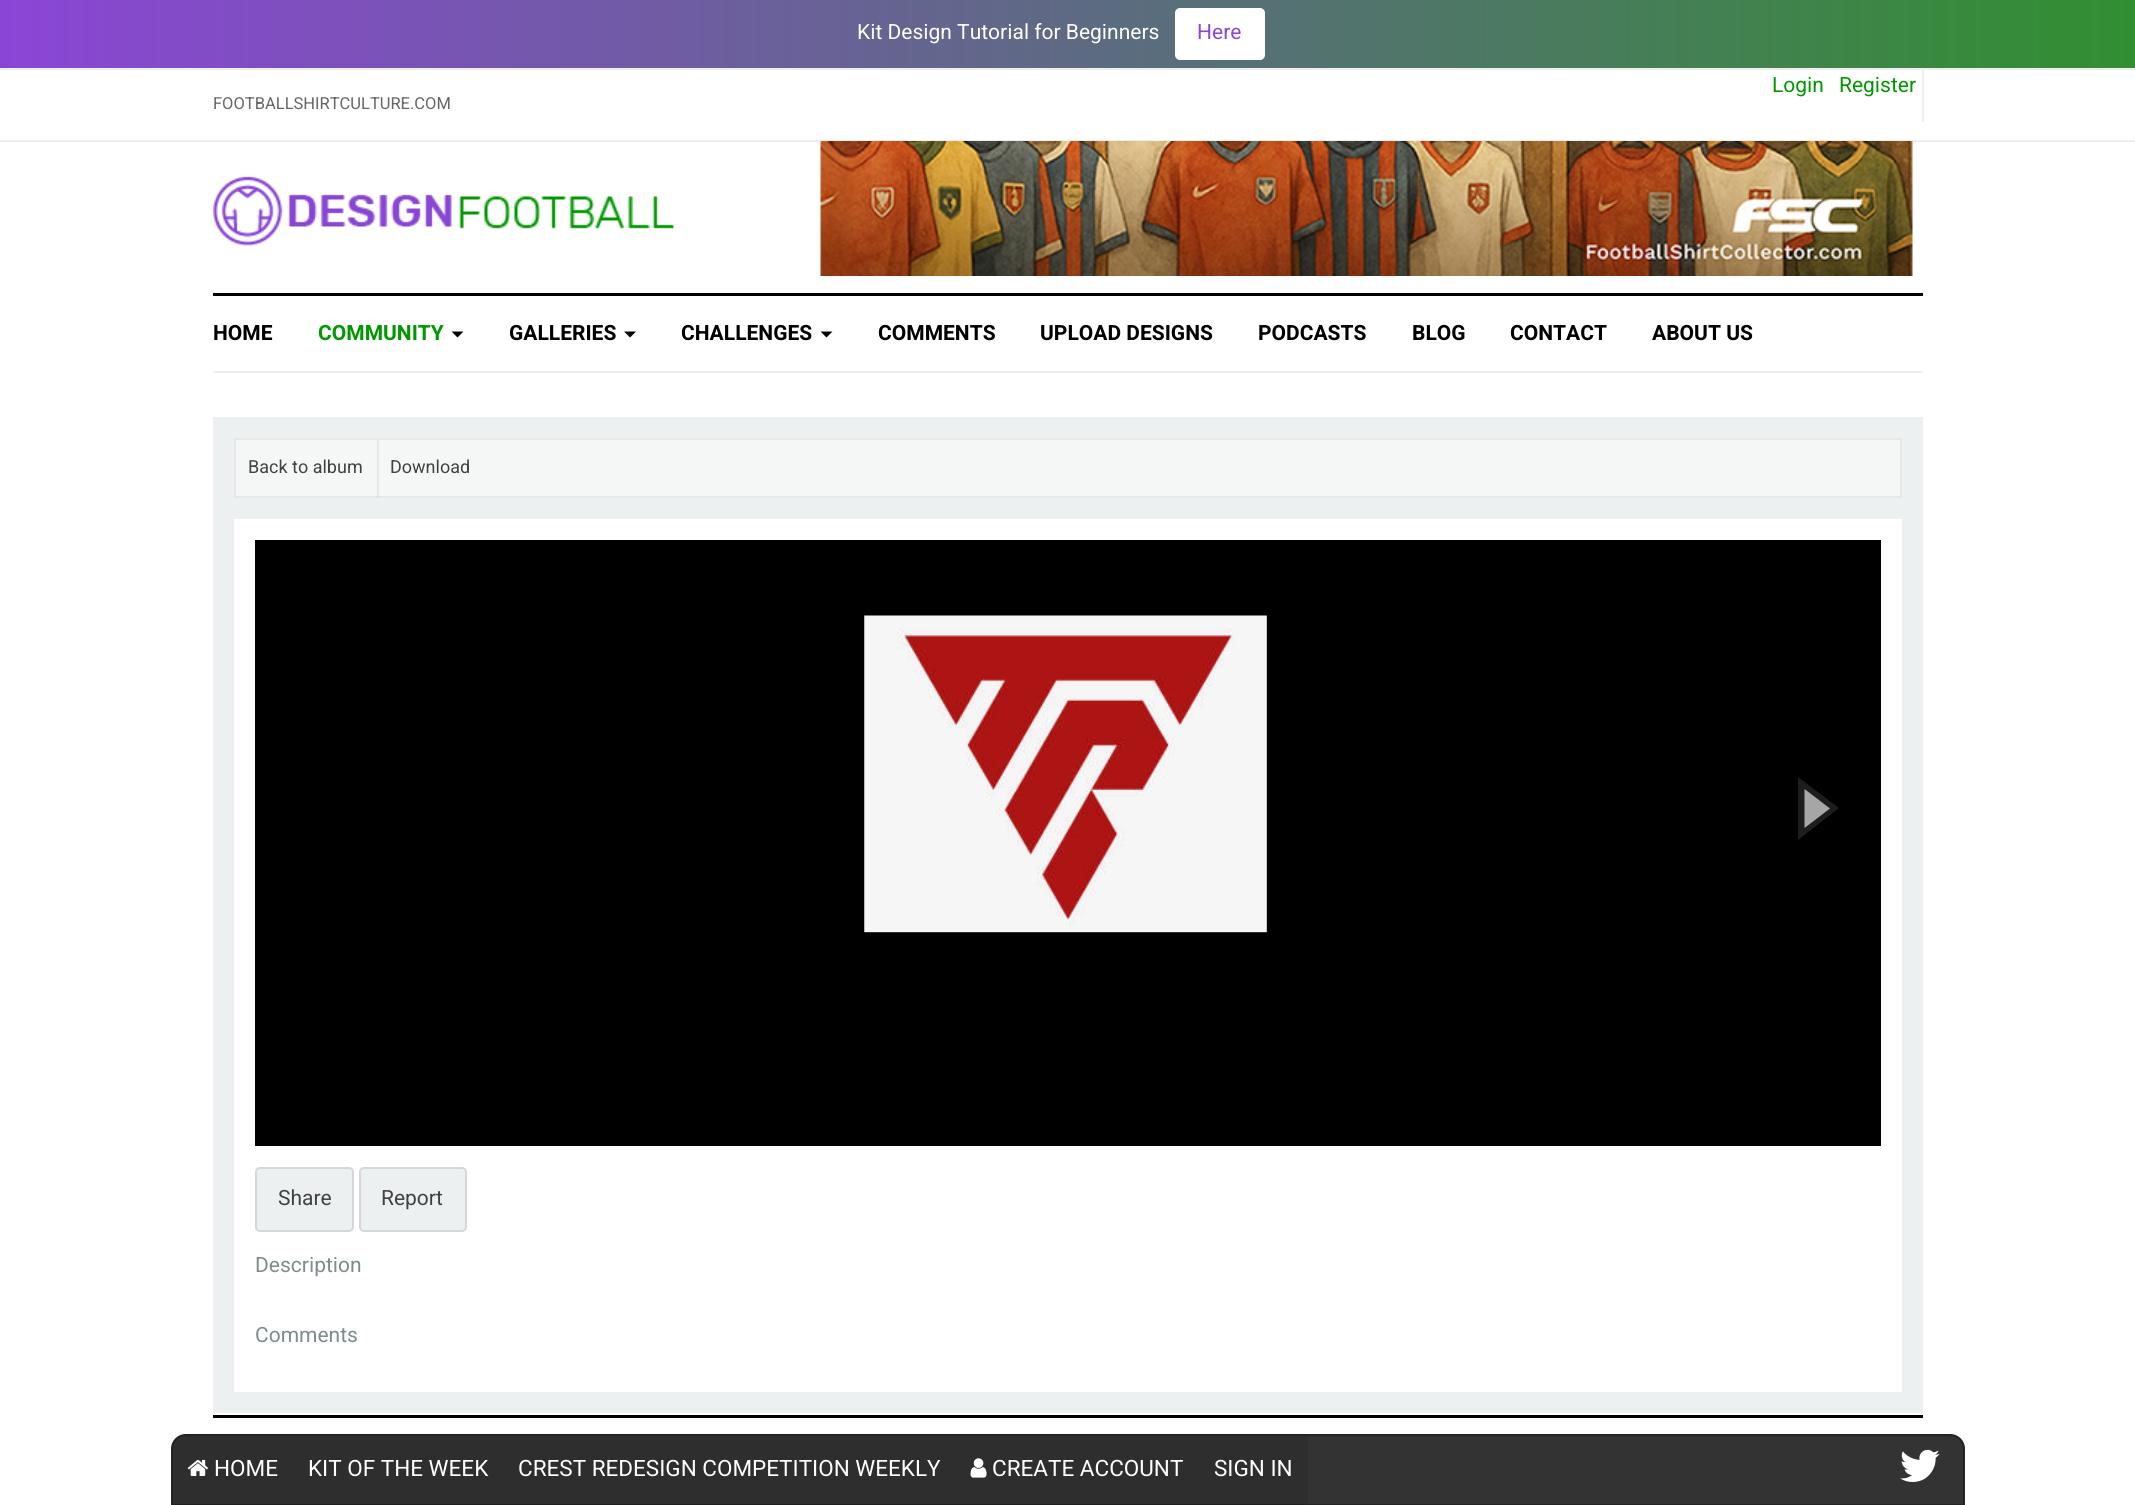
#include <cairo.h>
#include <math.h>
#include <stddef.h>

typedef struct { const char *family; double size; int italic, bold; unsigned color; } style_t;
static cairo_t *ctx;

static void ink(unsigned color) {
    cairo_set_source_rgb(ctx, (color >> 16) / 255.0, (color >> 8 & 255) / 255.0, (color & 255) / 255.0);
}

static void write(double x, double y, const char *s, const style_t *st) {
    cairo_select_font_face(ctx, st->family, st->italic ? CAIRO_FONT_SLANT_ITALIC : CAIRO_FONT_SLANT_NORMAL,
        st->bold ? CAIRO_FONT_WEIGHT_BOLD : CAIRO_FONT_WEIGHT_NORMAL);
    cairo_set_font_size(ctx, st->size);
    ink(st->color);
    cairo_move_to(ctx, x, y);
    cairo_show_text(ctx, s);
}

static void block(double x, double y, double w, double h, unsigned color) {
    ink(color);
    cairo_rectangle(ctx, x, y, w, h);
    cairo_fill(ctx);
}

static void round_path(double x, double y, double w, double h, double r) {
    cairo_new_sub_path(ctx);
    cairo_arc(ctx, x + w - r, y + h - r, r, 0, M_PI / 2);
    cairo_arc(ctx, x + r, y + h - r, r, M_PI / 2, M_PI);
    cairo_arc(ctx, x + r, y + r, r, M_PI, 1.5 * M_PI);
    cairo_arc(ctx, x + w - r, y + r, r, 1.5 * M_PI, 2 * M_PI);
    cairo_close_path(ctx);
}

static void paste(const char *path, double x, double y, double w, double h) {
    cairo_surface_t *image = cairo_image_surface_create_from_png(path);
    cairo_save(ctx);
    cairo_set_source_surface(ctx, image, x, y);
    cairo_rectangle(ctx, x, y, w, h);
    cairo_fill(ctx);
    cairo_restore(ctx);
    cairo_surface_destroy(image);
}

static const style_t s1 = {"Heebo", 21, 0, 0, 0xffffff};
static const style_t s2 = {"Heebo", 21, 0, 0, 0x8b45d6};
static const style_t s3 = {"Heebo", 21, 0, 0, 0x009900};
static const style_t s4 = {"Heebo", 16.5, 0, 0, 0x666666};
static const style_t s5 = {"Heebo", 21, 0, 1, 0x000000};
static const style_t s6 = {"Heebo", 21, 0, 1, 0x009900};
static const style_t s7 = {"Heebo", 18, 0, 0, 0x424242};
static const style_t s8 = {"Heebo", 21, 0, 0, 0x424242};
static const style_t s9 = {"Heebo", 21, 0, 0, 0x7f8c8d};
static const style_t s10 = {"Heebo", 22.5, 0, 0, 0xffffff};

int main(void) {
    cairo_surface_t *surface = cairo_image_surface_create(CAIRO_FORMAT_RGB24, 2135, 1505);
    ctx = cairo_create(surface);
    cairo_font_options_t *options = cairo_font_options_create();
    cairo_font_options_set_hint_metrics(options, CAIRO_HINT_METRICS_OFF);
    cairo_font_options_set_hint_style(options, CAIRO_HINT_STYLE_NONE);
    cairo_set_font_options(ctx, options);
    cairo_set_miter_limit(ctx, 4);
    cairo_pattern_t *gradient;
    ink(0xffffff);
    cairo_paint(ctx);
    gradient = cairo_pattern_create_linear(0, 34, 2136, 34);
    cairo_pattern_add_color_stop_rgba(gradient, 0, 0.545, 0.271, 0.839, 1);
    cairo_pattern_add_color_stop_rgba(gradient, 1, 0.192, 0.561, 0.192, 1);
    cairo_set_source(ctx, gradient);
    cairo_pattern_destroy(gradient);
    cairo_rectangle(ctx, 0, 0, 2135, 68);
    cairo_fill(ctx);
    write(857, 39, "Kit Design Tutorial for Beginners", &s1);
    round_path(1175, 8, 90, 52, 5);
    cairo_fill(ctx);
    write(1197, 39, "Here", &s2);
    block(0, 68, 2135, 2, 0xeeeeee);
    block(0, 140, 2135, 2, 0xeeeeee);
    block(1922, 69, 2, 53, 0xeeeeee);
    write(1772, 92, "Login", &s3);
    write(1839, 92, "Register", &s3);
    write(213, 109, "FOOTBALLSHIRTCULTURE.COM", &s4);
    paste("pic1.png", 213, 176, 461, 70);
    paste("pic2.png", 820, 141, 1093, 135);
    block(213, 293, 1710, 3, 0x000000);
    block(213, 371, 1710, 2, 0xeeeeee);
    write(213, 340, "HOME", &s5);
    write(318, 340, "COMMUNITY", &s6);
    ink(0x000000);
    cairo_new_path(ctx);
    cairo_move_to(ctx, 451.5, 331.5);
    cairo_line_to(ctx, 463.5, 331.5);
    cairo_line_to(ctx, 457.5, 337.5);
    cairo_close_path(ctx);
    cairo_fill(ctx);
    write(509, 340, "GALLERIES", &s5);
    cairo_new_path(ctx);
    cairo_move_to(ctx, 624, 331.5);
    cairo_line_to(ctx, 636, 331.5);
    cairo_line_to(ctx, 630, 337.5);
    cairo_close_path(ctx);
    cairo_fill(ctx);
    write(681, 340, "CHALLENGES", &s5);
    cairo_new_path(ctx);
    cairo_move_to(ctx, 820.5, 331.5);
    cairo_line_to(ctx, 832.5, 331.5);
    cairo_line_to(ctx, 826.5, 337.5);
    cairo_close_path(ctx);
    cairo_fill(ctx);
    write(878, 340, "COMMENTS", &s5);
    write(1040, 340, "UPLOAD DESIGNS", &s5);
    write(1258, 340, "PODCASTS", &s5);
    write(1412, 340, "BLOG", &s5);
    write(1510, 340, "CONTACT", &s5);
    write(1652, 340, "ABOUT US", &s5);
    block(213, 417, 1710, 996, 0xecf0f1);
    ink(0xf5f7f7);
    cairo_rectangle(ctx, 235, 439, 1666, 58);
    cairo_fill_preserve(ctx);
    ink(0xe6e8e8);
    cairo_stroke(ctx);
    cairo_set_source_rgba(ctx, 0, 0, 0, 0.06);
    cairo_rectangle(ctx, 377, 440, 2, 57);
    cairo_fill(ctx);
    write(248, 473, "Back to album", &s7);
    write(390, 473, "Download", &s7);
    block(234, 519, 1668, 873, 0xffffff);
    block(255, 540, 1626, 606, 0x000000);
    paste("pic3.png", 864, 615, 403, 318);
    ink(0x1d1d1d);
    cairo_new_path(ctx);
    cairo_move_to(ctx, 1798, 840);
    cairo_line_to(ctx, 1798, 777);
    cairo_line_to(ctx, 1839, 808);
    cairo_close_path(ctx);
    cairo_fill(ctx);
    ink(0xa6a6a6);
    cairo_new_path(ctx);
    cairo_move_to(ctx, 1804.5, 828);
    cairo_line_to(ctx, 1804.5, 789);
    cairo_line_to(ctx, 1830, 808.5);
    cairo_close_path(ctx);
    cairo_fill(ctx);
    ink(0xecf0f1);
    round_path(255, 1167, 99, 65, 5);
    cairo_fill(ctx);
    round_path(256, 1168, 97, 63, 4);
    cairo_set_source_rgba(ctx, 0, 0, 0, 0.1);
    cairo_stroke(ctx);
    write(278, 1205, "Share", &s8);
    ink(0xecf0f1);
    round_path(359, 1167, 108, 65, 5);
    cairo_fill(ctx);
    round_path(360, 1168, 106, 63, 4);
    cairo_set_source_rgba(ctx, 0, 0, 0, 0.1);
    cairo_stroke(ctx);
    write(381, 1205, "Report", &s8);
    write(255, 1272, "Description", &s9);
    write(255, 1342, "Comments", &s9);
    block(213, 1415, 1710, 3, 0x000000);
    ink(0x333333);
    cairo_new_path(ctx);
    cairo_move_to(ctx, 186, 1434);
    cairo_line_to(ctx, 1950, 1434);
    cairo_curve_to(ctx, 1958.5, 1434, 1965, 1440.5, 1965, 1449);
    cairo_line_to(ctx, 1965, 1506);
    cairo_line_to(ctx, 171, 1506);
    cairo_line_to(ctx, 171, 1449);
    cairo_curve_to(ctx, 171, 1440.5, 177.5, 1434, 186, 1434);
    cairo_close_path(ctx);
    cairo_fill(ctx);
    cairo_new_path(ctx);
    cairo_move_to(ctx, 186, 1435);
    cairo_line_to(ctx, 1950, 1435);
    cairo_curve_to(ctx, 1957.5, 1435, 1964, 1441.5, 1964, 1449);
    cairo_line_to(ctx, 1964, 1505);
    cairo_line_to(ctx, 172, 1505);
    cairo_line_to(ctx, 172, 1449);
    cairo_curve_to(ctx, 172, 1441.5, 178.5, 1435, 186, 1435);
    cairo_close_path(ctx);
    cairo_set_source_rgba(ctx, 0, 0, 0, 0.3);
    cairo_stroke(ctx);
    cairo_set_source_rgba(ctx, 0, 0, 0, 0.1);
    cairo_new_path(ctx);
    cairo_move_to(ctx, 187, 1436);
    cairo_line_to(ctx, 293, 1436);
    cairo_line_to(ctx, 293, 1505);
    cairo_line_to(ctx, 173, 1505);
    cairo_line_to(ctx, 173, 1450);
    cairo_curve_to(ctx, 173, 1442.5, 179.5, 1436, 187, 1436);
    cairo_close_path(ctx);
    cairo_fill(ctx);
    paste("pic4.png", 187, 1459, 21, 17);
    write(214, 1476, "HOME", &s10);
    cairo_set_source_rgba(ctx, 0, 0, 0, 0.1);
    cairo_rectangle(ctx, 293, 1436, 210, 69);
    cairo_fill(ctx);
    write(308, 1476, "KIT OF THE WEEK", &s10);
    cairo_set_source_rgba(ctx, 0, 0, 0, 0.1);
    cairo_rectangle(ctx, 503, 1436, 453, 69);
    cairo_fill(ctx);
    write(518, 1476, "CREST REDESIGN COMPETITION WEEKLY", &s10);
    cairo_set_source_rgba(ctx, 0, 0, 0, 0.1);
    cairo_rectangle(ctx, 956, 1436, 243, 69);
    cairo_fill(ctx);
    paste("pic5.png", 970, 1458, 17, 20);
    write(992, 1476, "CREATE ACCOUNT", &s10);
    cairo_set_source_rgba(ctx, 0, 0, 0, 0.1);
    cairo_rectangle(ctx, 1199, 1436, 109, 69);
    cairo_fill(ctx);
    write(1214, 1476, "SIGN IN", &s10);
    paste("pic6.png", 1900, 1449, 40, 33);
    cairo_surface_write_to_png(surface, "screenshot.png");
    cairo_font_options_destroy(options);
    cairo_destroy(ctx);
    cairo_surface_destroy(surface);
    return 0;
}
